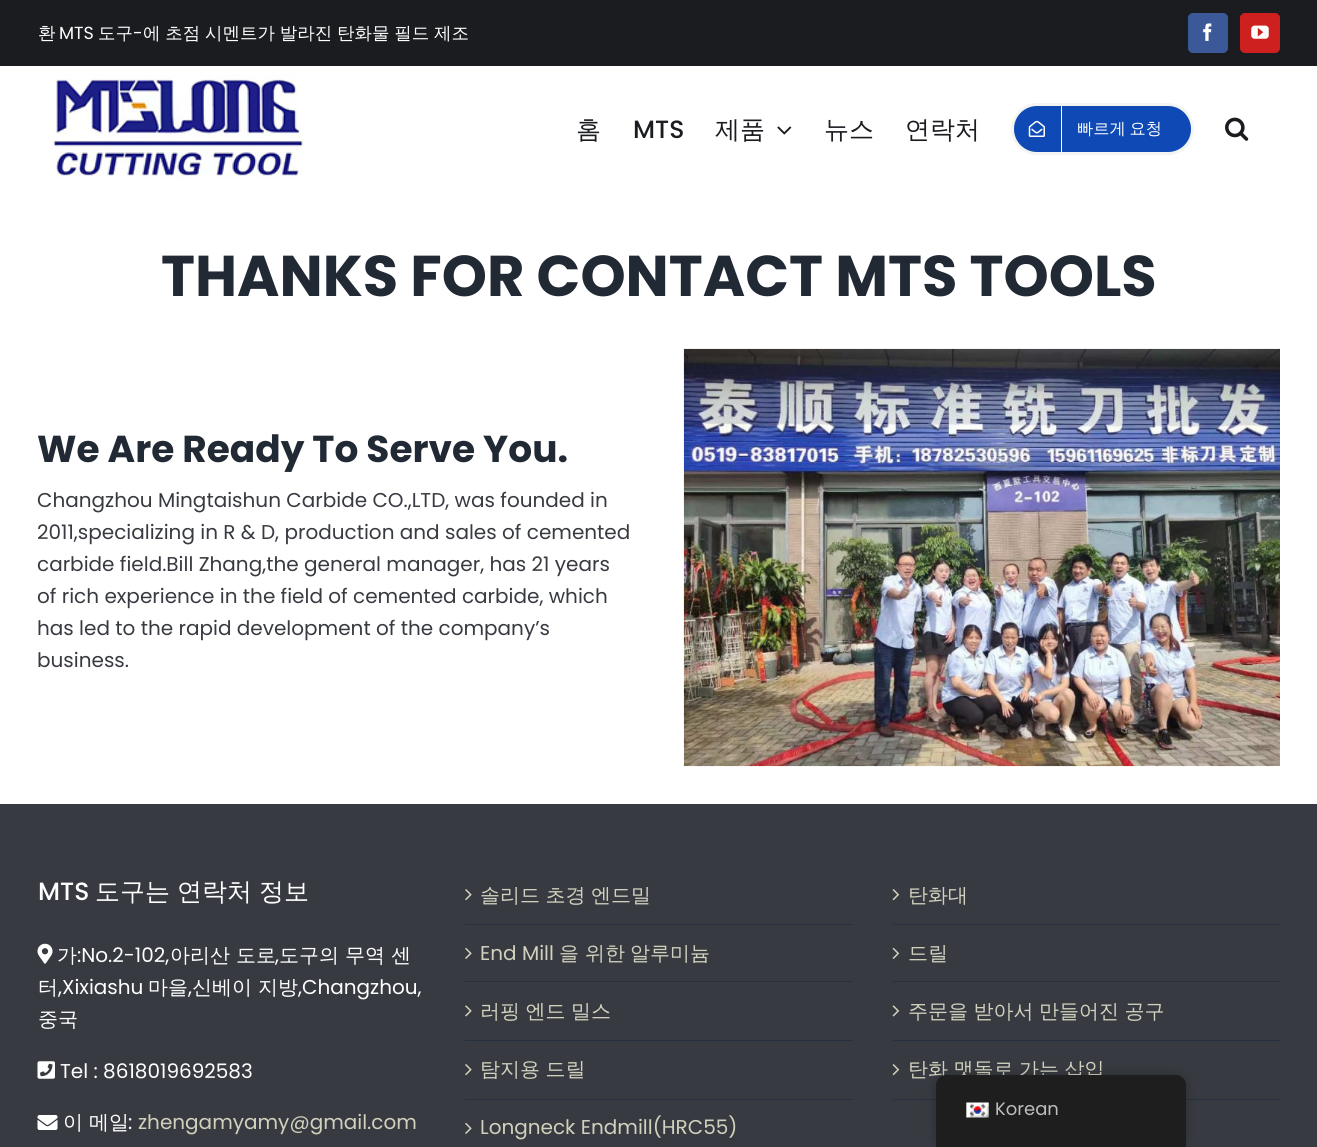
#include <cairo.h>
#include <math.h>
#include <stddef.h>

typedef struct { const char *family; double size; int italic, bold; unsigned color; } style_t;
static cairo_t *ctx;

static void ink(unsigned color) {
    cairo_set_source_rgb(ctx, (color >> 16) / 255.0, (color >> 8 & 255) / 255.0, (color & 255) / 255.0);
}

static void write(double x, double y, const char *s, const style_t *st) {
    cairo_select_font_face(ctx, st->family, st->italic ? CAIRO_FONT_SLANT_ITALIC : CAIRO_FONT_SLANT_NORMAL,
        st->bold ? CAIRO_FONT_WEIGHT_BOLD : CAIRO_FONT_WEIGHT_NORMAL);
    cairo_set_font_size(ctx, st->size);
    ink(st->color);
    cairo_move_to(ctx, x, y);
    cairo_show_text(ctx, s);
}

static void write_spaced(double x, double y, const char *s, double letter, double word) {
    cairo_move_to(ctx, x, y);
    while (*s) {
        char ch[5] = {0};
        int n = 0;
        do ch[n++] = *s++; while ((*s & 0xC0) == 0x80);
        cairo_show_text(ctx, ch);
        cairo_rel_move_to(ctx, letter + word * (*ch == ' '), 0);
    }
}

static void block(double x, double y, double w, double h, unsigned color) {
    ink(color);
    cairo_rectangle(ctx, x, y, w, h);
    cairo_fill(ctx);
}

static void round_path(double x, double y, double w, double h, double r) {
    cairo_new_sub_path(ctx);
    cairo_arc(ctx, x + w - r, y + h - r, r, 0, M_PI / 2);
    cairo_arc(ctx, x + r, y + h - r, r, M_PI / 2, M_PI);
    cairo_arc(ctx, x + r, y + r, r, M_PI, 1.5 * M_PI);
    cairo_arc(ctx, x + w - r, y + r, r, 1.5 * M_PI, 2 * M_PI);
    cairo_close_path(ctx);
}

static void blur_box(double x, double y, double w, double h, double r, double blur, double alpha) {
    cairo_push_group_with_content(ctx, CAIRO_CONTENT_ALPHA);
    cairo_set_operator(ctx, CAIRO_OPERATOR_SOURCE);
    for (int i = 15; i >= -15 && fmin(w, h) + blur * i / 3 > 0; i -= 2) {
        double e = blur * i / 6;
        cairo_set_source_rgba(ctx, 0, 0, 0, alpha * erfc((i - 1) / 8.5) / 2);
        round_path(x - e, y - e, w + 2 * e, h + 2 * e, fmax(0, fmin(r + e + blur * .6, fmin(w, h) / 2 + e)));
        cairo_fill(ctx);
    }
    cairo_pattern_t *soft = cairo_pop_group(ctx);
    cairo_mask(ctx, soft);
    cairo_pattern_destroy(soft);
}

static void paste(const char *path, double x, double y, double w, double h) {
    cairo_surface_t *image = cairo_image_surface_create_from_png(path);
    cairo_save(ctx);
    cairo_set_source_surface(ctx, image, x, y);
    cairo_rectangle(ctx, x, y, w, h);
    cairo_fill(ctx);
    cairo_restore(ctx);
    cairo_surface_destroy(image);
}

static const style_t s1 = {"WenQuanYi Zen Hei Medium", 17.5, 0, 0, 0xffffff};
static const style_t s2 = {"Poppins", 17.5, 0, 0, 0xffffff};
static const style_t s3 = {"WenQuanYi Zen Hei Medium", 25, 0, 0, 0x1a1c20};
static const style_t s4 = {"Poppins Medium", 25, 0, 0, 0x1a1c20};
static const style_t s5 = {"Poppins", 57.5, 0, 1, 0x212934};
static const style_t s6 = {"Poppins", 37.5, 0, 1, 0x212934};
static const style_t s7 = {"Poppins", 20, 0, 0, 0x373a40};
static const style_t s8 = {"Poppins Medium", 25, 0, 0, 0xffffff};
static const style_t s9 = {"WenQuanYi Zen Hei Medium", 20, 0, 0, 0xffffff};
static const style_t s10 = {"Poppins", 20, 0, 0, 0xffffff};
static const style_t s11 = {"Poppins", 20, 0, 0, 0xd1d1be};
static const style_t s12 = {"WenQuanYi Zen Hei Medium", 20, 0, 0, 0xd1d1be};
static const style_t s13 = {"Poppins", 18, 0, 0, 0xbdbdbd};

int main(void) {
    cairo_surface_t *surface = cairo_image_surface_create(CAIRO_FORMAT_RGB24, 1317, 1147);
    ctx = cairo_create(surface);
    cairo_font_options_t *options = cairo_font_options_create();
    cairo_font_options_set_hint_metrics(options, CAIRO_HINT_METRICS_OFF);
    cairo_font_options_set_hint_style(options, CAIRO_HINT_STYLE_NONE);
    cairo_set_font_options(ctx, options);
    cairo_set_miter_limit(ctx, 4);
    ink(0xffffff);
    cairo_paint(ctx);
    block(0, 0, 1317, 66, 0x1a1c20);
    write(38, 39, "환", &s1);
    write(59, 39, "MTS", &s2);
    write(98, 39, "도구", &s1);
    write(133, 39, "-", &s2);
    cairo_select_font_face(ctx, "WenQuanYi Zen Hei Medium", CAIRO_FONT_SLANT_NORMAL, CAIRO_FONT_WEIGHT_NORMAL);
    write_spaced(143, 39, "에 초점 시멘트가 발라진 탄화물 필드 제조", 0, -0.5);
    ink(0x3b5998);
    round_path(1188.5, 13.5, 39, 39, 4.5);
    cairo_fill_preserve(ctx);
    cairo_set_line_width(ctx, 1);
    cairo_stroke(ctx);
    paste("pic1.png", 1203, 23, 9, 18);
    ink(0xcd201f);
    round_path(1240.5, 13.5, 39, 39, 4.5);
    cairo_fill_preserve(ctx);
    cairo_stroke(ctx);
    paste("pic2.png", 1251, 25, 18, 14);
    paste("pic3.png", 53, 74, 252, 106);
    write(576, 138, "홈", &s3);
    write(633, 138, "MTS", &s4);
    write(715, 138, "제품", &s3);
    paste("pic4.png", 777, 126, 15, 9);
    write(824, 138, "뉴스", &s3);
    write(905, 138, "연락처", &s3);
    ink(0x0e49b5);
    round_path(1012.5, 104.5, 180, 49, 24.5);
    cairo_fill_preserve(ctx);
    ink(0xf4f4f2);
    cairo_set_line_width(ctx, 3);
    cairo_stroke(ctx);
    block(1061, 105, 1, 48, 0xffffff);
    paste("pic5.png", 1028, 120, 17, 17);
    cairo_set_font_size(ctx, 16.25);
    write_spaced(1077, 134, "빠르게 요청", 0, -1);
    paste("pic6.png", 1225, 117, 24, 24);
    write(161, 296, "THANKS FOR CONTACT MTS TOOLS", &s5);
    write(37, 462, "We Are Ready To Serve You.", &s6);
    write(37, 507, "Changzhou Mingtaishun Carbide CO.,LTD, was founded in", &s7);
    write(37, 539, "2011,specializing in R & D, production and sales of cemented", &s7);
    write(37, 571, "carbide field.Bill Zhang,the general manager, has 21 years", &s7);
    write(37, 603, "of rich experience in the field of cemented carbide, which", &s7);
    write(37, 635, "has led to the rapid development of the company’s", &s7);
    write(37, 667, "business.", &s7);
    paste("pic7.png", 683, 348, 597, 419);
    block(0, 804, 1317, 343, 0x373a40);
    write(38, 900, "MTS", &s8);
    cairo_select_font_face(ctx, "WenQuanYi Zen Hei Medium", CAIRO_FONT_SLANT_NORMAL, CAIRO_FONT_WEIGHT_NORMAL);
    write_spaced(95, 900, "도구는 연락처 정보", 0, -0.5);
    paste("pic8.png", 37, 943, 16, 21);
    write(57, 962, "가", &s9);
    write(77, 962, ":No.2-102,", &s10);
    write(170, 962, "아리산 도로", &s9);
    write(275, 962, ",", &s10);
    write(279, 962, "도구의 무역 센", &s9);
    write(38, 994, "터", &s9);
    write(58, 994, ",Xixiashu", &s10);
    write(148, 994, "마을", &s9);
    write(188, 994, ",", &s10);
    write(192, 994, "신베이 지방", &s9);
    write(298, 994, ",Changzhou,", &s10);
    write(38, 1026, "중국", &s9);
    paste("pic9.png", 37, 1061, 18, 18);
    write(60, 1078, "Tel : 8618019692583", &s10);
    paste("pic10.png", 37, 1115, 21, 15);
    write(63, 1129, "이 메일", &s9);
    write(128, 1129, ":", &s10);
    write(138, 1129, "zhengamyamy@gmail.com", &s11);
    block(465, 924, 388, 1, 0x26303e);
    paste("pic11.png", 465, 889, 7, 12);
    cairo_select_font_face(ctx, "WenQuanYi Zen Hei Medium", CAIRO_FONT_SLANT_NORMAL, CAIRO_FONT_WEIGHT_NORMAL);
    ink(0xd1d1be);
    write_spaced(480, 902, "솔리드 초경 엔드밀", 0, -0.5);
    block(465, 981, 388, 1, 0x26303e);
    paste("pic12.png", 465, 947, 7, 12);
    write(480, 960, "End Mill", &s11);
    write(559, 960, "을", &s12);
    write(585, 960, "위한", &s12);
    write(630, 960, "알루미늄", &s12);
    block(465, 1040, 388, 1, 0x26303e);
    paste("pic13.png", 465, 1005, 7, 12);
    ink(0xd1d1be);
    write_spaced(480, 1018, "러핑 엔드 밀스", 0, -0.5);
    block(465, 1099, 388, 1, 0x26303e);
    paste("pic11.png", 465, 1064, 7, 12);
    ink(0xd1d1be);
    write_spaced(480, 1076, "탐지용 드릴", 0, -0.5);
    paste("pic12.png", 465, 1122, 7, 12);
    write(480, 1134, "Longneck Endmill(HRC55)", &s11);
    block(893, 924, 387, 1, 0x26303e);
    paste("pic14.png", 892, 889, 8, 12);
    write(908, 902, "탄화대", &s12);
    block(893, 981, 387, 1, 0x26303e);
    paste("pic15.png", 892, 947, 8, 12);
    write(908, 960, "드릴", &s12);
    block(893, 1040, 387, 1, 0x26303e);
    paste("pic16.png", 892, 1005, 8, 12);
    ink(0xd1d1be);
    write_spaced(908, 1018, "주문을 받아서 만들어진 공구", 0, -0.5);
    block(893, 1099, 387, 1, 0x26303e);
    paste("pic14.png", 892, 1064, 8, 12);
    ink(0xd1d1be);
    write_spaced(908, 1076, "탄화 맷돌로 가는 삽입", 0, -0.5);
    ink(0x000000);
    blur_box(936, 1075, 250, 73, 10, 5, 0.25);
    ink(0x1e1e1e);
    cairo_new_path(ctx);
    cairo_move_to(ctx, 946, 1075);
    cairo_line_to(ctx, 1176, 1075);
    cairo_curve_to(ctx, 1181.5, 1075, 1186, 1079.5, 1186, 1085);
    cairo_line_to(ctx, 1186, 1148);
    cairo_line_to(ctx, 936, 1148);
    cairo_line_to(ctx, 936, 1085);
    cairo_curve_to(ctx, 936, 1079.5, 940.5, 1075, 946, 1075);
    cairo_close_path(ctx);
    cairo_fill(ctx);
    paste("pic17.png", 966, 1102, 23, 16);
    write(995, 1115, "Korean", &s13);
    cairo_surface_write_to_png(surface, "screenshot.png");
    cairo_font_options_destroy(options);
    cairo_destroy(ctx);
    cairo_surface_destroy(surface);
    return 0;
}
